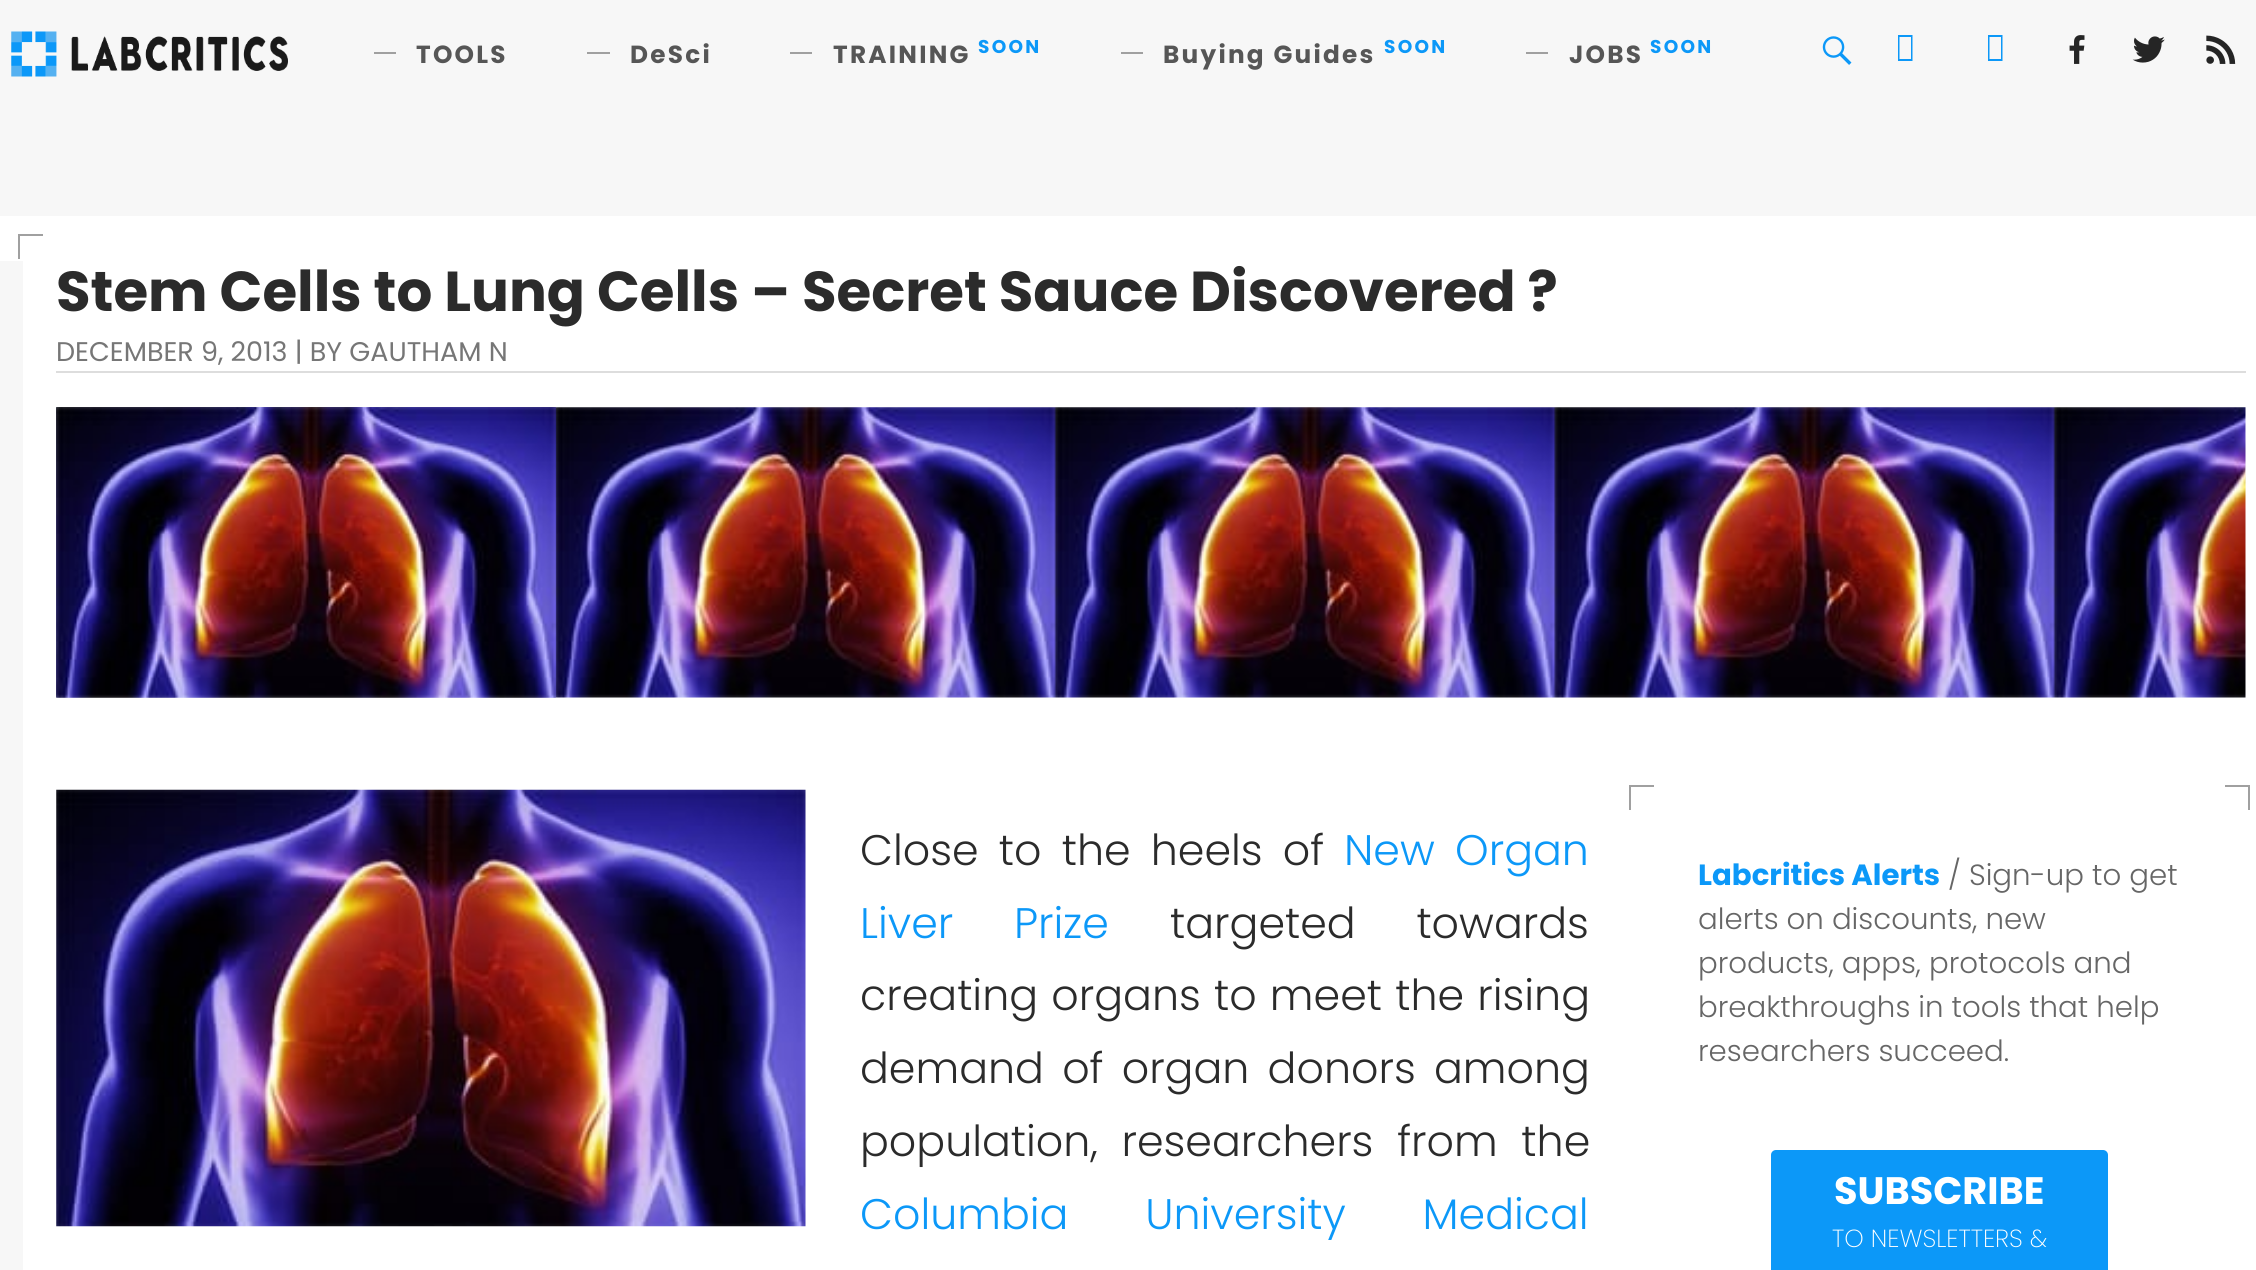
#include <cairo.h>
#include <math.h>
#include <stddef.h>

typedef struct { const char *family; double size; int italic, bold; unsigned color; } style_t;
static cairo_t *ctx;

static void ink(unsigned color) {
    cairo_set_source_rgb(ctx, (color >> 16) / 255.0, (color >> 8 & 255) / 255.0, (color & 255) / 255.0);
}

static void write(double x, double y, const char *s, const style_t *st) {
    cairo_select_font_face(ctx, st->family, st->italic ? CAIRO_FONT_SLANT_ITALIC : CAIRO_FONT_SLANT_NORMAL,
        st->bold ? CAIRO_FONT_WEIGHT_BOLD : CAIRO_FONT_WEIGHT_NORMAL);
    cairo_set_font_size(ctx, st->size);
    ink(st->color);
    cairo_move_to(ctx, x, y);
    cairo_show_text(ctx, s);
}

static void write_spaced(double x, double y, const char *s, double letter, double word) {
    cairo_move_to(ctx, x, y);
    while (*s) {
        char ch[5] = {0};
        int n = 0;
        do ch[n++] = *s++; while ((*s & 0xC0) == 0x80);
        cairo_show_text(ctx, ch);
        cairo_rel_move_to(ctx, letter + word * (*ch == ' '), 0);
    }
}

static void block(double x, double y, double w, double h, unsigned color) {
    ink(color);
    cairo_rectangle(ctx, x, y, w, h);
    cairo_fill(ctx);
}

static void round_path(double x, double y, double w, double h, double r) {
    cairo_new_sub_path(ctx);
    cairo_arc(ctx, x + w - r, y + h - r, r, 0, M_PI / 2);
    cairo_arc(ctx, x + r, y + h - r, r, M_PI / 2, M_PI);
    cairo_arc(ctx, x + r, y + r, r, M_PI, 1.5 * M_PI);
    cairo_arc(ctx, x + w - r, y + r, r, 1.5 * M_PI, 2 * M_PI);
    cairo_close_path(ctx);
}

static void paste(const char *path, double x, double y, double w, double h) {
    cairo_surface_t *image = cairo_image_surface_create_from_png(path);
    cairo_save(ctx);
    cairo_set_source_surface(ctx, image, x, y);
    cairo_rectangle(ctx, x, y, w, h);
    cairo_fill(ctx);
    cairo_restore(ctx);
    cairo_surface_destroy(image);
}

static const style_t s1 = {"Poppins", 56.25, 0, 1, 0x2b2b2b};
static const style_t s2 = {"Poppins", 27, 0, 0, 0x767676};
static const style_t s3 = {"Poppins", 29.25, 0, 1, 0x0c98f8};
static const style_t s4 = {"Poppins Light", 29.25, 0, 0, 0x666666};
static const style_t s5 = {"Poppins", 38.25, 0, 1, 0xffffff};
static const style_t s6 = {"Poppins ExtraLight", 24.75, 0, 0, 0xffffff};

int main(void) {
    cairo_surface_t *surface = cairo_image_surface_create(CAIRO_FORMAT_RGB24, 2256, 1270);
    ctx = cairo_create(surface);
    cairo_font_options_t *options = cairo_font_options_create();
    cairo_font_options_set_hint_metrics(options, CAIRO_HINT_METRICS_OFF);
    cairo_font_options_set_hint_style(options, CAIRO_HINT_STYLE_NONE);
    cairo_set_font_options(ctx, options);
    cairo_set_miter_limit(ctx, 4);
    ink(0xf7f7f7);
    cairo_paint(ctx);
    paste("pic1.png", 11, 31, 277, 46);
    block(374, 52, 22, 2, 0xa0a0a0);
    cairo_select_font_face(ctx, "Poppins", CAIRO_FONT_SLANT_NORMAL, CAIRO_FONT_WEIGHT_BOLD);
    cairo_set_font_size(ctx, 24.75);
    ink(0x565656);
    write_spaced(416, 63, "TOOLS", 2.25, 0);
    block(587, 52, 23, 2, 0xa0a0a0);
    ink(0x565656);
    write_spaced(630, 63, "DeSci", 2.25, 0);
    block(790, 52, 22, 2, 0xa0a0a0);
    ink(0x565656);
    write_spaced(833, 63, "TRAINING", 2.25, 0);
    cairo_set_font_size(ctx, 18.5);
    ink(0x0c98f8);
    write_spaced(978, 53, "SOON", 2.25, 0);
    block(1121, 52, 22, 2, 0xa0a0a0);
    cairo_set_font_size(ctx, 24.75);
    ink(0x565656);
    write_spaced(1163, 63, "Buying Guides", 2.25, 0);
    cairo_set_font_size(ctx, 18.5);
    ink(0x0c98f8);
    write_spaced(1384, 53, "SOON", 2.25, 0);
    block(1526, 52, 22, 2, 0xa0a0a0);
    cairo_set_font_size(ctx, 24.75);
    ink(0x565656);
    write_spaced(1569, 63, "JOBS", 2.25, 0);
    cairo_set_font_size(ctx, 18.5);
    ink(0x0c98f8);
    write_spaced(1650, 53, "SOON", 2.25, 0);
    paste("pic2.png", 1822, 36, 30, 29);
    cairo_new_path(ctx);
    cairo_move_to(ctx, 1898, 61);
    cairo_line_to(ctx, 1898, 35);
    cairo_line_to(ctx, 1912.5, 35);
    cairo_line_to(ctx, 1912.5, 61);
    cairo_close_path(ctx);
    cairo_move_to(ctx, 1899.5, 59);
    cairo_line_to(ctx, 1911, 59);
    cairo_line_to(ctx, 1911, 37);
    cairo_line_to(ctx, 1899.5, 37);
    cairo_close_path(ctx);
    cairo_fill(ctx);
    cairo_new_path(ctx);
    cairo_move_to(ctx, 1988, 61);
    cairo_line_to(ctx, 1988, 35);
    cairo_line_to(ctx, 2002.5, 35);
    cairo_line_to(ctx, 2002.5, 61);
    cairo_close_path(ctx);
    cairo_move_to(ctx, 1989.5, 59);
    cairo_line_to(ctx, 2001, 59);
    cairo_line_to(ctx, 2001, 37);
    cairo_line_to(ctx, 1989.5, 37);
    cairo_close_path(ctx);
    cairo_fill(ctx);
    paste("pic3.png", 2069, 35, 16, 29);
    paste("pic4.png", 2132, 36, 33, 27);
    paste("pic5.png", 2206, 35, 30, 29);
    block(0, 216, 2256, 45, 0xffffff);
    block(23, 261, 2233, 1009, 0xffffff);
    block(18, 234, 25, 2, 0xa0a0a0);
    block(18, 234, 2, 25, 0xa0a0a0);
    block(56, 371, 2190, 2, 0xdddddd);
    write(56, 311, "Stem Cells to Lung Cells – Secret Sauce Discovered ?", &s1);
    write(56, 361, "DECEMBER 9, 2013 | BY GAUTHAM N", &s2);
    paste("pic6.png", 56, 407, 2190, 291);
    paste("pic7.png", 56, 407, 500, 291);
    paste("pic8.png", 56, 789, 750, 438);
    cairo_select_font_face(ctx, "Poppins Light", CAIRO_FONT_SLANT_NORMAL, CAIRO_FONT_WEIGHT_NORMAL);
    cairo_set_font_size(ctx, 42.75);
    ink(0x2b2b2b);
    write_spaced(860, 865, "Close to the heels of", 0, 8.5);
    ink(0x0c98f8);
    write_spaced(1344, 865, "New Organ", 0, 8.5);
    write_spaced(860, 938, "Liver Prize", 0, 49);
    ink(0x2b2b2b);
    write_spaced(1170, 938, "targeted towards", 0, 49);
    write_spaced(860, 1010, "creating organs to meet the rising", 0, 1.5);
    write_spaced(860, 1083, "demand of organ donors among", 0, 6.5);
    write_spaced(860, 1156, "population, researchers from the", 0, 12);
    ink(0x0c98f8);
    write_spaced(860, 1229, "Columbia University Medical", 0, 65);
    block(1629, 785, 25, 2, 0xa0a0a0);
    block(1629, 785, 2, 25, 0xa0a0a0);
    block(2225, 785, 25, 2, 0xa0a0a0);
    block(2248, 785, 2, 25, 0xa0a0a0);
    write(1698, 885, "Labcritics Alerts", &s3);
    write(1948, 885, "/ Sign-up to get", &s4);
    write(1698, 929, "alerts on discounts, new", &s4);
    write(1698, 973, "products, apps, protocols and", &s4);
    write(1698, 1017, "breakthroughs in tools that help", &s4);
    write(1698, 1061, "researchers succeed.", &s4);
    ink(0x0c98f8);
    round_path(1771, 1150, 337, 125, 5);
    cairo_fill(ctx);
    write(1834, 1204, "SUBSCRIBE", &s5);
    write(1832, 1247, "TO NEWSLETTERS &", &s6);
    cairo_surface_write_to_png(surface, "screenshot.png");
    cairo_font_options_destroy(options);
    cairo_destroy(ctx);
    cairo_surface_destroy(surface);
    return 0;
}
